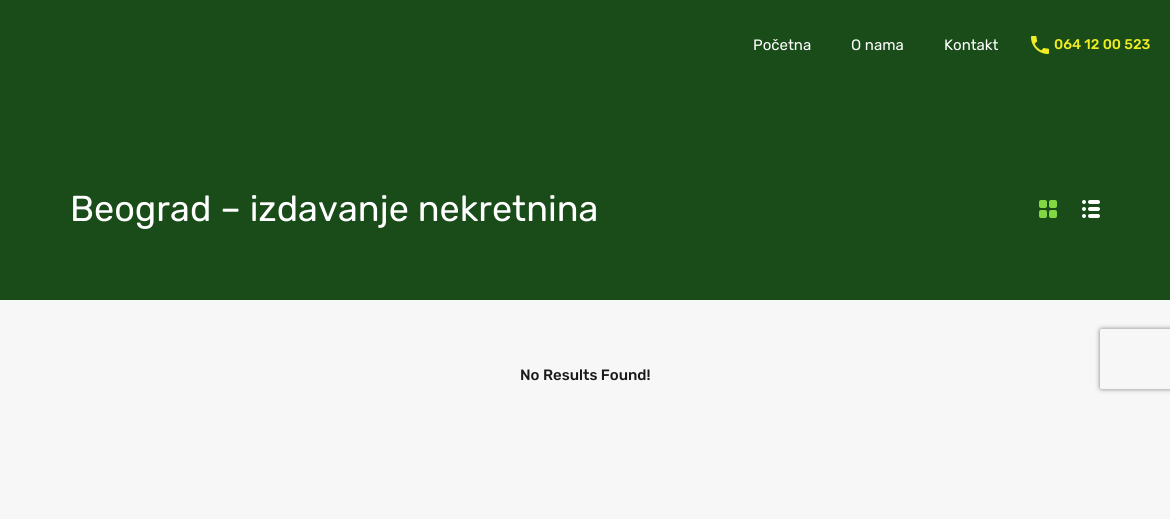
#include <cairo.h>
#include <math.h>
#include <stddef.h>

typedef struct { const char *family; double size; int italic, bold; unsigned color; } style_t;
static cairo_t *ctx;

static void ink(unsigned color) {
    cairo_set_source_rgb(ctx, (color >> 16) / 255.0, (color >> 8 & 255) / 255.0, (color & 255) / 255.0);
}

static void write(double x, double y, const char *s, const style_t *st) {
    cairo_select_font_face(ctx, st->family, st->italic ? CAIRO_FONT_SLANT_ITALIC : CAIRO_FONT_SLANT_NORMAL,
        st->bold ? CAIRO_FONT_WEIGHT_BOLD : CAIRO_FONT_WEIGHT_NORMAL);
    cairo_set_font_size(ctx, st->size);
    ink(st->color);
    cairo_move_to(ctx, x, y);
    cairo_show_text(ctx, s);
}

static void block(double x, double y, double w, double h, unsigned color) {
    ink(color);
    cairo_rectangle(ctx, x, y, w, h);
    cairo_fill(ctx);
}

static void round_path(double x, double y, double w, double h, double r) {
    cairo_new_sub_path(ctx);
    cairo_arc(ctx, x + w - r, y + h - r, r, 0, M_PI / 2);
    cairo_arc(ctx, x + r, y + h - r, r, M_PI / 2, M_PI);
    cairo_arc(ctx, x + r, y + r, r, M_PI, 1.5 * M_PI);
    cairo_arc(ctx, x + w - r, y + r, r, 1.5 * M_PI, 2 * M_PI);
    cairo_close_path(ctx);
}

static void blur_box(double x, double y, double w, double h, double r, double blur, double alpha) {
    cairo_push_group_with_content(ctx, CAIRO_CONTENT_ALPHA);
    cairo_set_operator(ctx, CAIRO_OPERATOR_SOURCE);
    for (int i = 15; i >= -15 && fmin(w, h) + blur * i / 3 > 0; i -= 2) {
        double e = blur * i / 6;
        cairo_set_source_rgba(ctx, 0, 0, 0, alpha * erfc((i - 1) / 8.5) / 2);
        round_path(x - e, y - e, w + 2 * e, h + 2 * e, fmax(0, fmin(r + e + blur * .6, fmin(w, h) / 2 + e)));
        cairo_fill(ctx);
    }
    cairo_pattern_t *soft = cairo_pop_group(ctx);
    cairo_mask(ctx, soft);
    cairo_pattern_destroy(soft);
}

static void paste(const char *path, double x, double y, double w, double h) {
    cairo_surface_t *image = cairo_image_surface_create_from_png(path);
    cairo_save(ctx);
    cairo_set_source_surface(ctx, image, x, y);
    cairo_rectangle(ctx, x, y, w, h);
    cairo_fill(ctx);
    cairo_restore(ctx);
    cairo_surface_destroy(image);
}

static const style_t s1 = {"Rubik", 15, 0, 0, 0xffffff};
static const style_t s2 = {"Rubik Medium", 14, 0, 0, 0xeeee22};
static const style_t s3 = {"Rubik", 36, 0, 0, 0xffffff};
static const style_t s4 = {"Rubik Medium", 15, 0, 0, 0x1a1a1a};

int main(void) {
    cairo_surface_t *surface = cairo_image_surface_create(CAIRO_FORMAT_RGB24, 1170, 519);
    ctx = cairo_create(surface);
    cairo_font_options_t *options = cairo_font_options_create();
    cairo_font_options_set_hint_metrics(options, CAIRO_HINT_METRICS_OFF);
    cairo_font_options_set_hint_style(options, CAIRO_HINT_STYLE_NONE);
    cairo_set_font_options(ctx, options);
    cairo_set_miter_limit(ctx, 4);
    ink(0xf7f7f7);
    cairo_paint(ctx);
    block(0, 0, 1170, 300, 0x1a4c1a);
    write(753, 50, "Početna", &s1);
    write(851, 50, "O nama", &s1);
    write(944, 50, "Kontakt", &s1);
    paste("pic1.png", 1031, 36, 18, 18);
    write(1054, 49, "064 12 00 523", &s2);
    write(70, 221, "Beograd – izdavanje nekretnina", &s3);
    paste("pic2.png", 1039, 200, 18, 18);
    paste("pic3.png", 1082, 200, 18, 18);
    write(520, 380, "No Results Found!", &s4);
    cairo_save(ctx);
    cairo_set_fill_rule(ctx, CAIRO_FILL_RULE_EVEN_ODD);
    cairo_new_path(ctx);
    cairo_move_to(ctx, 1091, 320);
    cairo_line_to(ctx, 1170, 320);
    cairo_line_to(ctx, 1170, 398);
    cairo_line_to(ctx, 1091, 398);
    cairo_close_path(ctx);
    cairo_move_to(ctx, 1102, 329);
    cairo_line_to(ctx, 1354, 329);
    cairo_curve_to(ctx, 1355, 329, 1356, 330, 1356, 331);
    cairo_line_to(ctx, 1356, 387);
    cairo_curve_to(ctx, 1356, 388, 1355, 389, 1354, 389);
    cairo_line_to(ctx, 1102, 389);
    cairo_curve_to(ctx, 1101, 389, 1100, 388, 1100, 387);
    cairo_line_to(ctx, 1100, 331);
    cairo_curve_to(ctx, 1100, 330, 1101, 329, 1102, 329);
    cairo_close_path(ctx);
    cairo_clip(ctx);
    ink(0x808080);
    blur_box(1100, 329, 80, 60, 2, 2.5, 1);
    cairo_restore(ctx);
    cairo_surface_write_to_png(surface, "screenshot.png");
    cairo_font_options_destroy(options);
    cairo_destroy(ctx);
    cairo_surface_destroy(surface);
    return 0;
}
